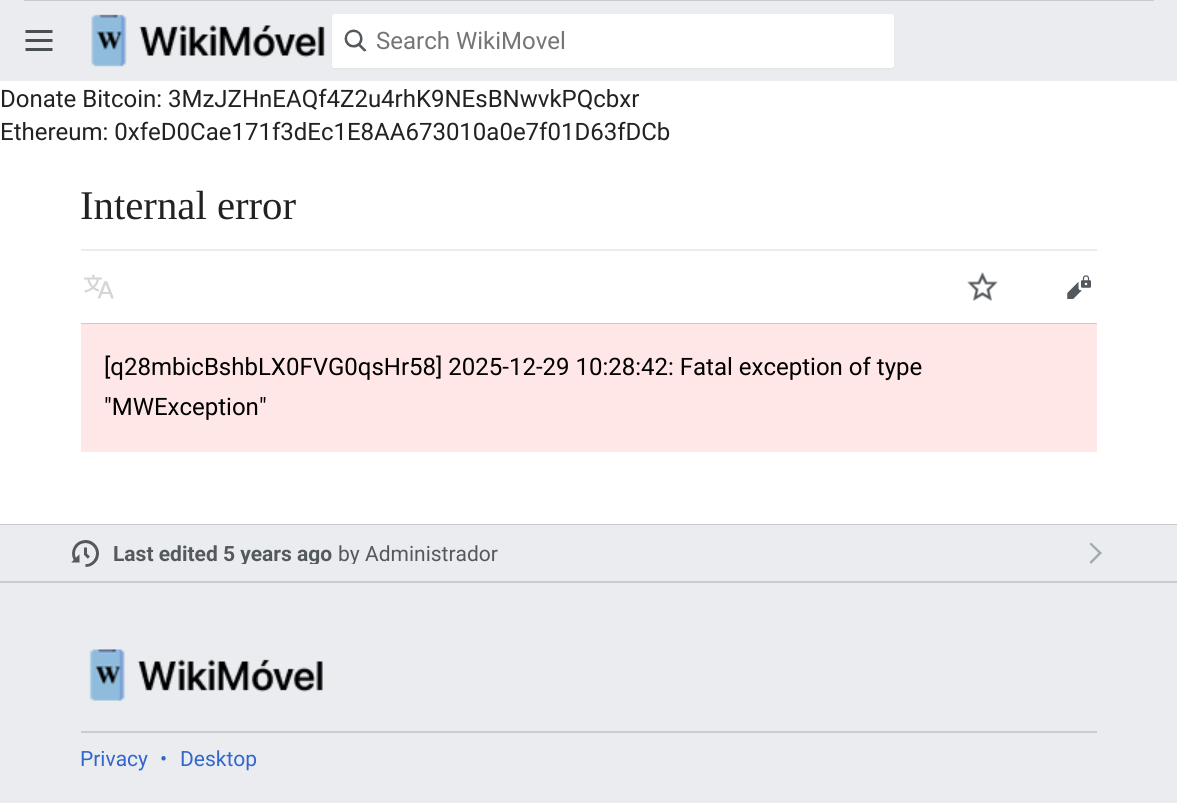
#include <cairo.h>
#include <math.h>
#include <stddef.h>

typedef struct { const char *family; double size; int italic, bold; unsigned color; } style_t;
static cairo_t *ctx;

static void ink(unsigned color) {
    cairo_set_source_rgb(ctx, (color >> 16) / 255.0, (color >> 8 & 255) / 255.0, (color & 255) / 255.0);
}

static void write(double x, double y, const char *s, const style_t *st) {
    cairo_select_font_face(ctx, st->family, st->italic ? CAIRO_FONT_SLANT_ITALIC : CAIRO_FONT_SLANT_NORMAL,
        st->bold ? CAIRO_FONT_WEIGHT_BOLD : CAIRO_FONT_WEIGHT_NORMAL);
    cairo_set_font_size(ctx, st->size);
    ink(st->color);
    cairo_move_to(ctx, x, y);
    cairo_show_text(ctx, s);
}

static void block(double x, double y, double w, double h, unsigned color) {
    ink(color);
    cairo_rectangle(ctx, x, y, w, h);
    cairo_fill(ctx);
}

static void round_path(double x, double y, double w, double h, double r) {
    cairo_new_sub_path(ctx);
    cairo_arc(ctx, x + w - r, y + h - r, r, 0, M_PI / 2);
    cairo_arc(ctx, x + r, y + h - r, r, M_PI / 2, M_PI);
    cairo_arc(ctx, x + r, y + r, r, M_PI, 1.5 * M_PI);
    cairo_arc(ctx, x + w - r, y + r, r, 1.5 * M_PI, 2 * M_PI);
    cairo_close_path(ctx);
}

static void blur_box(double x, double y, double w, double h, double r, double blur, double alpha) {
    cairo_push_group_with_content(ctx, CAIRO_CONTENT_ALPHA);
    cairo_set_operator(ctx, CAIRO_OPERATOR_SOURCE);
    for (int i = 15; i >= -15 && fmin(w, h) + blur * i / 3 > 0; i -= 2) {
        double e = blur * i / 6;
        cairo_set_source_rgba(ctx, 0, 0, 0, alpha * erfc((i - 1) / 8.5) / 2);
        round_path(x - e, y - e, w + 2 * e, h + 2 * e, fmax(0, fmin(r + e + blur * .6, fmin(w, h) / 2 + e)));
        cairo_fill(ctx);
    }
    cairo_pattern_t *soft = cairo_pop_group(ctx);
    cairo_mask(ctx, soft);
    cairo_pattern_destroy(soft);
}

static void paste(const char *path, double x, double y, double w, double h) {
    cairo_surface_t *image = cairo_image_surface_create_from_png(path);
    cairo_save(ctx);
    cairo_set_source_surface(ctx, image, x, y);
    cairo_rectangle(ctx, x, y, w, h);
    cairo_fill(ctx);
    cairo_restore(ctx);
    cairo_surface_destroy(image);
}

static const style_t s1 = {"Roboto", 24, 0, 0, 0x757575};
static const style_t s2 = {"Roboto", 24, 0, 0, 0x222222};
static const style_t s3 = {"Liberation Serif", 40.75, 0, 0, 0x222222};
static const style_t s4 = {"Roboto", 24, 0, 0, 0x000000};
static const style_t s5 = {"Roboto", 21, 0, 1, 0x54595d};
static const style_t s6 = {"Roboto", 21, 0, 0, 0x54595d};
static const style_t s7 = {"Roboto", 21, 0, 0, 0x3366cc};

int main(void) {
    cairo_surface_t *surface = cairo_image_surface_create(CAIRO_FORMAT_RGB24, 1177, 803);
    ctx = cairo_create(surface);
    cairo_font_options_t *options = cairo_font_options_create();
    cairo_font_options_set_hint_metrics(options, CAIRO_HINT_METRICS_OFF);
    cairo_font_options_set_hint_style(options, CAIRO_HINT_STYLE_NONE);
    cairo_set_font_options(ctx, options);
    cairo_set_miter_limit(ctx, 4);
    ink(0xeaecf0);
    cairo_paint(ctx);
    block(24, 0, 1130, 1, 0xc8ccd1);
    paste("pic1.png", 25, 30, 28, 21);
    paste("pic2.png", 91, 14, 234, 53);
    ink(0x000000);
    blur_box(332, 15, 562, 54, 3, 1, 0.05);
    ink(0xffffff);
    round_path(332, 14, 562, 54, 3);
    cairo_fill(ctx);
    paste("pic3.png", 344, 29, 23, 23);
    round_path(333, 15, 560, 52, 2);
    cairo_stroke(ctx);
    write(376, 49, "Search WikiMovel", &s1);
    block(0, 81, 1177, 443, 0xffffff);
    write(0, 107, "Donate Bitcoin: 3MzJZHnEAQf4Z2u4rhK9NEsBNwvkPQcbxr", &s2);
    write(0, 140, "Ethereum: 0xfeD0Cae171f3dEc1E8AA673010a0e7f01D63fDCb", &s2);
    write(80, 219, "Internal error", &s3);
    block(81, 249, 1016, 2, 0xeaecf0);
    block(81, 323, 1016, 1, 0xc8ccd1);
    paste("pic4.png", 84, 274, 30, 25);
    paste("pic5.png", 967, 272, 31, 29);
    paste("pic6.png", 1067, 275, 24, 24);
    block(81, 324, 1016, 128, 0xfee7e6);
    write(104, 375, "[q28mbicBshbLX0FVG0qsHr58] 2025-12-29 10:28:42: Fatal exception of type", &s4);
    write(104, 415, "\"MWException\"", &s4);
    block(0, 524, 1177, 1, 0xc8ccd1);
    block(0, 581, 1177, 2, 0xc8ccd1);
    paste("pic7.png", 71, 540, 28, 27);
    cairo_save(ctx);
    cairo_rectangle(ctx, 101, 543, 982, 21);
    cairo_clip(ctx);
    write(113, 561, "Last edited 5 years ago", &s5);
    write(338, 561, "by", &s6);
    cairo_restore(ctx);
    write(365, 561, "Administrador", &s6);
    ink(0xa2a9b1);
    cairo_new_path(ctx);
    cairo_move_to(ctx, 1089.5, 544);
    cairo_line_to(ctx, 1098.5, 553);
    cairo_line_to(ctx, 1089.5, 562);
    cairo_line_to(ctx, 1091, 564);
    cairo_line_to(ctx, 1102, 553);
    cairo_line_to(ctx, 1091, 542.5);
    cairo_close_path(ctx);
    cairo_fill(ctx);
    block(81, 731, 1016, 2, 0xc8ccd1);
    paste("pic8.png", 89, 649, 234, 52);
    write(80, 766, "Privacy", &s7);
    write(160, 766, "•", &s7);
    write(180, 766, "Desktop", &s7);
    cairo_surface_write_to_png(surface, "screenshot.png");
    cairo_font_options_destroy(options);
    cairo_destroy(ctx);
    cairo_surface_destroy(surface);
    return 0;
}
